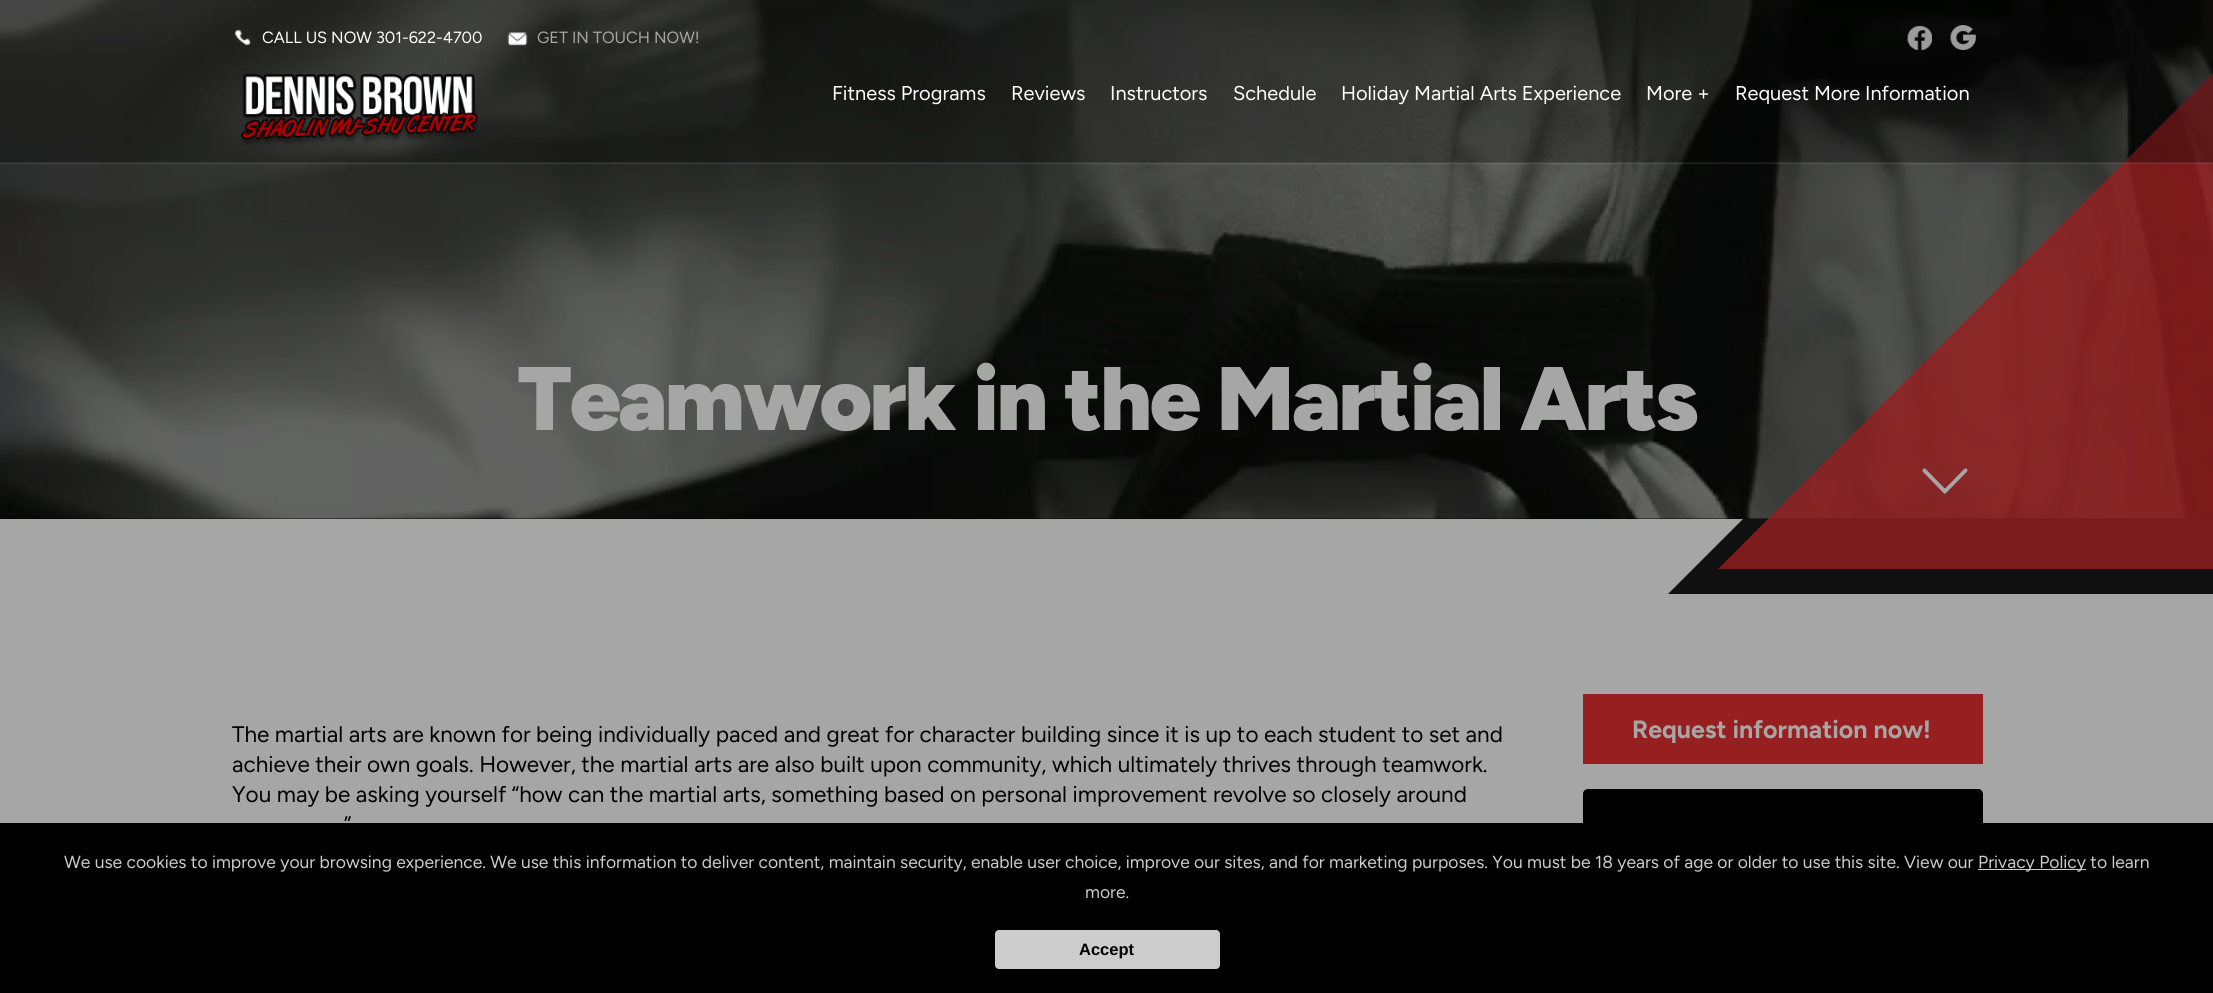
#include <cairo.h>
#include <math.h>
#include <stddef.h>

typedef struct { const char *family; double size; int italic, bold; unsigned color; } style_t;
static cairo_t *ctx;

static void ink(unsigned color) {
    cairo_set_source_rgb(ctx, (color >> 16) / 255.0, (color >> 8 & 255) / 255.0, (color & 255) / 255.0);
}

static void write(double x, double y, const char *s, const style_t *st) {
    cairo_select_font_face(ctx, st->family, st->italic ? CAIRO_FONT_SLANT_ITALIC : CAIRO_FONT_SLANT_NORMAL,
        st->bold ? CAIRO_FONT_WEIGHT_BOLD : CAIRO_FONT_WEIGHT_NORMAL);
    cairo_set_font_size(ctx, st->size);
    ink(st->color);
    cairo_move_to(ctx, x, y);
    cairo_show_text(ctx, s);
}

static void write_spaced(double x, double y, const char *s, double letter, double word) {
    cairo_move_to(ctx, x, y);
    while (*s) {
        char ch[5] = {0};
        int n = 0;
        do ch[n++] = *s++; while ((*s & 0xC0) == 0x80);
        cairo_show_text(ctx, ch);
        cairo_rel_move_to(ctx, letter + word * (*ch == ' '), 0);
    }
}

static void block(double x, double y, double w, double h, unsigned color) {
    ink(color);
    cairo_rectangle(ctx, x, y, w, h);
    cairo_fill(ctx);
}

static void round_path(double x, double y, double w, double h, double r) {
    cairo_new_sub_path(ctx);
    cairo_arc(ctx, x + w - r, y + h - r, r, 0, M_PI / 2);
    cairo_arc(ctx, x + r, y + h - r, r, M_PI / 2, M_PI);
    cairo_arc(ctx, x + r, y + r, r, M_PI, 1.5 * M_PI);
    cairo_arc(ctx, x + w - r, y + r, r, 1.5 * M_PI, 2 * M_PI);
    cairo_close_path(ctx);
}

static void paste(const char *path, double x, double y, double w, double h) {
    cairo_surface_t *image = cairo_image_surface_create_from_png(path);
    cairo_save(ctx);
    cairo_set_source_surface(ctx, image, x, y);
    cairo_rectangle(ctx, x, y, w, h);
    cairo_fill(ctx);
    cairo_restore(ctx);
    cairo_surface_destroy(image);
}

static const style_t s1 = {"Figtree", 16.25, 0, 0, 0xffffff};
static const style_t s2 = {"Figtree", 16.25, 0, 0, 0xa6a6a6};
static const style_t s3 = {"Figtree", 20, 0, 0, 0xffffff};
static const style_t s4 = {"Figtree", 22.5, 0, 0, 0x000000};
static const style_t s5 = {"Figtree", 25, 0, 1, 0xa6a6a6};
static const style_t s6 = {"Figtree", 17.5, 0, 0, 0xcccccc};
static const style_t s7 = {"Liberation Sans", 16.5, 0, 1, 0x000000};

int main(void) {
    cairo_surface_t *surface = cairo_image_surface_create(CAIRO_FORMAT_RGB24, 2213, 993);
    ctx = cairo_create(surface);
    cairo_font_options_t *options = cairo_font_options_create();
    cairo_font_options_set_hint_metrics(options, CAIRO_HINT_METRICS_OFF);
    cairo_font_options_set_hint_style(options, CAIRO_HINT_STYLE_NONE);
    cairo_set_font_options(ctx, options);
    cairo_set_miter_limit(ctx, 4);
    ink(0xa6a6a6);
    cairo_paint(ctx);
    block(0, 0, 2213, 519, 0x000000);
    cairo_set_source_rgba(ctx, 0, 0, 0, 0.9);
    cairo_new_path(ctx);
    cairo_move_to(ctx, 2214, 48);
    cairo_line_to(ctx, 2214, 594);
    cairo_line_to(ctx, 1668, 594);
    cairo_close_path(ctx);
    cairo_fill(ctx);
    paste("pic6.png", 0, 0, 2213, 519);
    cairo_set_source_rgba(ctx, 0.592, 0.122, 0.122, 0.8);
    cairo_new_path(ctx);
    cairo_move_to(ctx, 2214, 72);
    cairo_line_to(ctx, 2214, 569);
    cairo_line_to(ctx, 1718, 569);
    cairo_close_path(ctx);
    cairo_fill(ctx);
    cairo_set_source_rgba(ctx, 1, 1, 1, 0.1);
    cairo_new_path(ctx);
    cairo_move_to(ctx, 0, 162);
    cairo_line_to(ctx, 0, 164);
    cairo_line_to(ctx, 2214, 164);
    cairo_line_to(ctx, 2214, 1);
    cairo_line_to(ctx, 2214, 162);
    cairo_close_path(ctx);
    cairo_fill(ctx);
    cairo_set_source_rgba(ctx, 0, 0, 0, 0.3);
    cairo_rectangle(ctx, 0, 0, 2213, 163);
    cairo_fill(ctx);
    paste("pic1.png", 235, 29, 17, 17);
    write(262, 43, "CALL US NOW 301-622-4700", &s1);
    paste("pic2.png", 507, 32, 21, 14);
    write(537, 43, "GET IN TOUCH NOW!", &s2);
    paste("pic3.png", 1907, 25, 25, 25);
    paste("pic4.png", 1950, 25, 26, 25);
    paste("pic5.png", 241, 73, 237, 73);
    write(832, 100, "Fitness Programs", &s3);
    write(1011, 100, "Reviews", &s3);
    write(1110, 100, "Instructors", &s3);
    write(1233, 100, "Schedule", &s3);
    write(1341, 100, "Holiday Martial Arts Experience", &s3);
    write(1646, 100, "More +", &s3);
    write(1735, 100, "Request More Information", &s3);
    cairo_select_font_face(ctx, "Figtree Black", CAIRO_FONT_SLANT_NORMAL, CAIRO_FONT_WEIGHT_NORMAL);
    cairo_set_font_size(ctx, 90);
    ink(0xa6a6a6);
    write_spaced(517, 430, "Teamwork in the Martial Arts", -2.5, 0);
    paste("pic7.png", 1922, 468, 46, 26);
    write(232, 742, "The martial arts are known for being individually paced and great for character building since it is up to each student to set and", &s4);
    write(232, 772, "achieve their own goals. However, the martial arts are also built upon community, which ultimately thrives through teamwork.", &s4);
    write(232, 802, "You may be asking yourself “how can the martial arts, something based on personal improvement revolve so closely around", &s4);
    write(344, 832, "”", &s4);
    block(1583, 694, 400, 70, 0x971f1f);
    write(1632, 738, "Request information now!", &s5);
    ink(0x000000);
    round_path(1583, 789, 400, 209, 5);
    cairo_fill(ctx);
    block(0, 823, 2213, 170, 0x000000);
    write(64, 868, "We use cookies to improve your browsing experience. We use this information to deliver content, maintain security, enable user choice, improve our sites, and for marketing purposes. You must be 18 years of age or older to use this site. View our", &s6);
    block(1978, 869, 108, 1, 0xcccccc);
    write(1978, 868, "Privacy Policy to learn", &s6);
    write(1085, 898, "more.", &s6);
    round_path(995, 930, 225, 39, 4);
    cairo_fill(ctx);
    write(1079, 955, "Accept", &s7);
    cairo_surface_write_to_png(surface, "screenshot.png");
    cairo_font_options_destroy(options);
    cairo_destroy(ctx);
    cairo_surface_destroy(surface);
    return 0;
}
